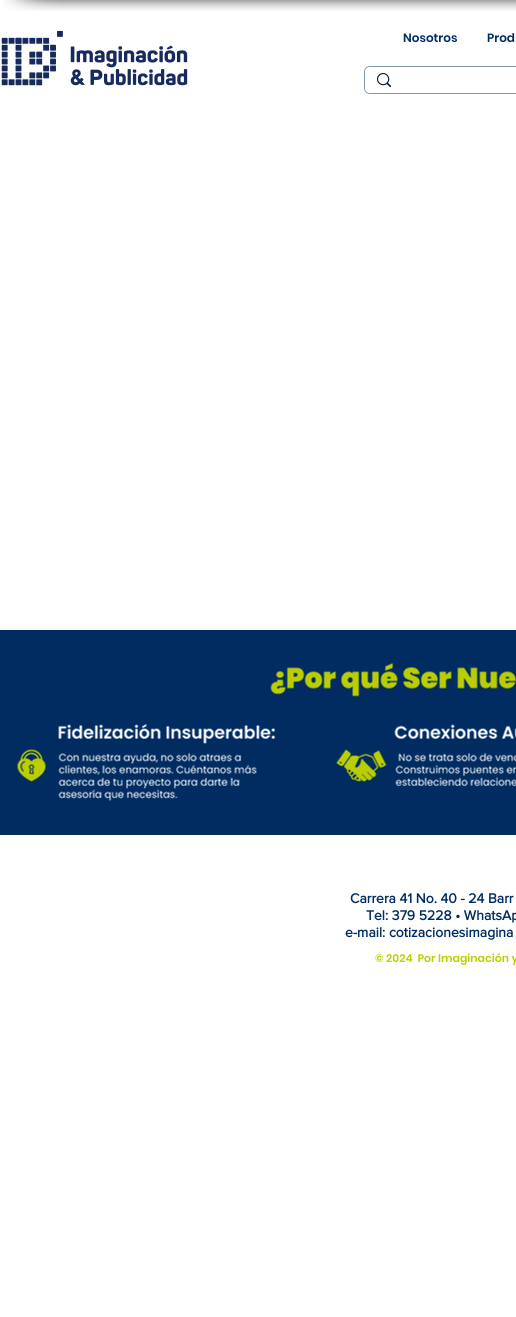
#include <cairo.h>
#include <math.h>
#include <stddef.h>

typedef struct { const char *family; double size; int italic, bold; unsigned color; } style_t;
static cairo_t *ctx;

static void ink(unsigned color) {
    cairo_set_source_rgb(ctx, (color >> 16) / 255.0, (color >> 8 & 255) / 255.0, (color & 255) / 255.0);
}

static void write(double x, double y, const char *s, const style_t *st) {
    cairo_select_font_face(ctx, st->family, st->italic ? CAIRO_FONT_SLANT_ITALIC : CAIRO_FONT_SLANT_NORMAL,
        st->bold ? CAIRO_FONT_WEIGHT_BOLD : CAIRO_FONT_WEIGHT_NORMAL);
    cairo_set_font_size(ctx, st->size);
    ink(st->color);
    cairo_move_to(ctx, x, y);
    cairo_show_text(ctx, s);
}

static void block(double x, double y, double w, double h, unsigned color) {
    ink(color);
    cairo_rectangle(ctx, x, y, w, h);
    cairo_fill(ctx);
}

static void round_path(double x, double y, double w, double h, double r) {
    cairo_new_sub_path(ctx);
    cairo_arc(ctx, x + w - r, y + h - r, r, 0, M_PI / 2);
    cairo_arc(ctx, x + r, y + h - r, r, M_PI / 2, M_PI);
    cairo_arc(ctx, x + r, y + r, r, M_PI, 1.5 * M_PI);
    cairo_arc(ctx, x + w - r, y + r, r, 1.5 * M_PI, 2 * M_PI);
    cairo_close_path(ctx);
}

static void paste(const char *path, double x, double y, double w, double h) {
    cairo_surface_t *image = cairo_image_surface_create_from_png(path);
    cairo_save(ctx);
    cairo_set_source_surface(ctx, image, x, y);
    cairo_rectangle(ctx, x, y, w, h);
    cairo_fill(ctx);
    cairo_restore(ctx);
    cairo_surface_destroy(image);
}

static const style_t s1 = {"Poppins SemiBold", 12, 0, 0, 0x002c62};
static const style_t s2 = {"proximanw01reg", 14, 0, 1, 0x002c62};
static const style_t s3 = {"Poppins SemiBold", 11, 0, 0, 0xbccf00};

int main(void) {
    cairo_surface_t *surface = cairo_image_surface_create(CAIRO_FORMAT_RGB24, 516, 1317);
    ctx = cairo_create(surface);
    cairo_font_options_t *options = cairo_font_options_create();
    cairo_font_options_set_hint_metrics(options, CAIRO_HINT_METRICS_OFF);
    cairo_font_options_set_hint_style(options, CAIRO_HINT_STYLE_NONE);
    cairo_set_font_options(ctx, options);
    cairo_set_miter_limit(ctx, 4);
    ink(0xffffff);
    cairo_paint(ctx);
    paste("pic1.png", 3, 0, 97, 11);
    paste("pic2.png", 100, 0, 416, 11);
    paste("pic3.png", 1, 30, 187, 56);
    write(403, 42, "Nosotros", &s1);
    write(487, 42, "Prod", &s1);
    round_path(364.5, 66.5, 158, 27, 5.5);
    ink(0x8096b0);
    cairo_set_line_width(ctx, 1);
    cairo_stroke(ctx);
    ink(0xffffff);
    round_path(365, 67, 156, 26, 5);
    cairo_fill(ctx);
    paste("pic4.png", 377, 73, 14, 14);
    block(0, 630, 516, 205, 0x002c62);
    paste("pic5.png", 17, 663, 499, 138);
    write(350, 903, "Carrera 41 No. 40 - 24 Barr", &s2);
    write(366, 920, "Tel: 379 5228 • WhatsAp", &s2);
    write(345, 937, "e-mail: cotizacionesimagina", &s2);
    write(375, 962, "© 2024  Por Imaginación y", &s3);
    cairo_surface_write_to_png(surface, "screenshot.png");
    cairo_font_options_destroy(options);
    cairo_destroy(ctx);
    cairo_surface_destroy(surface);
    return 0;
}
